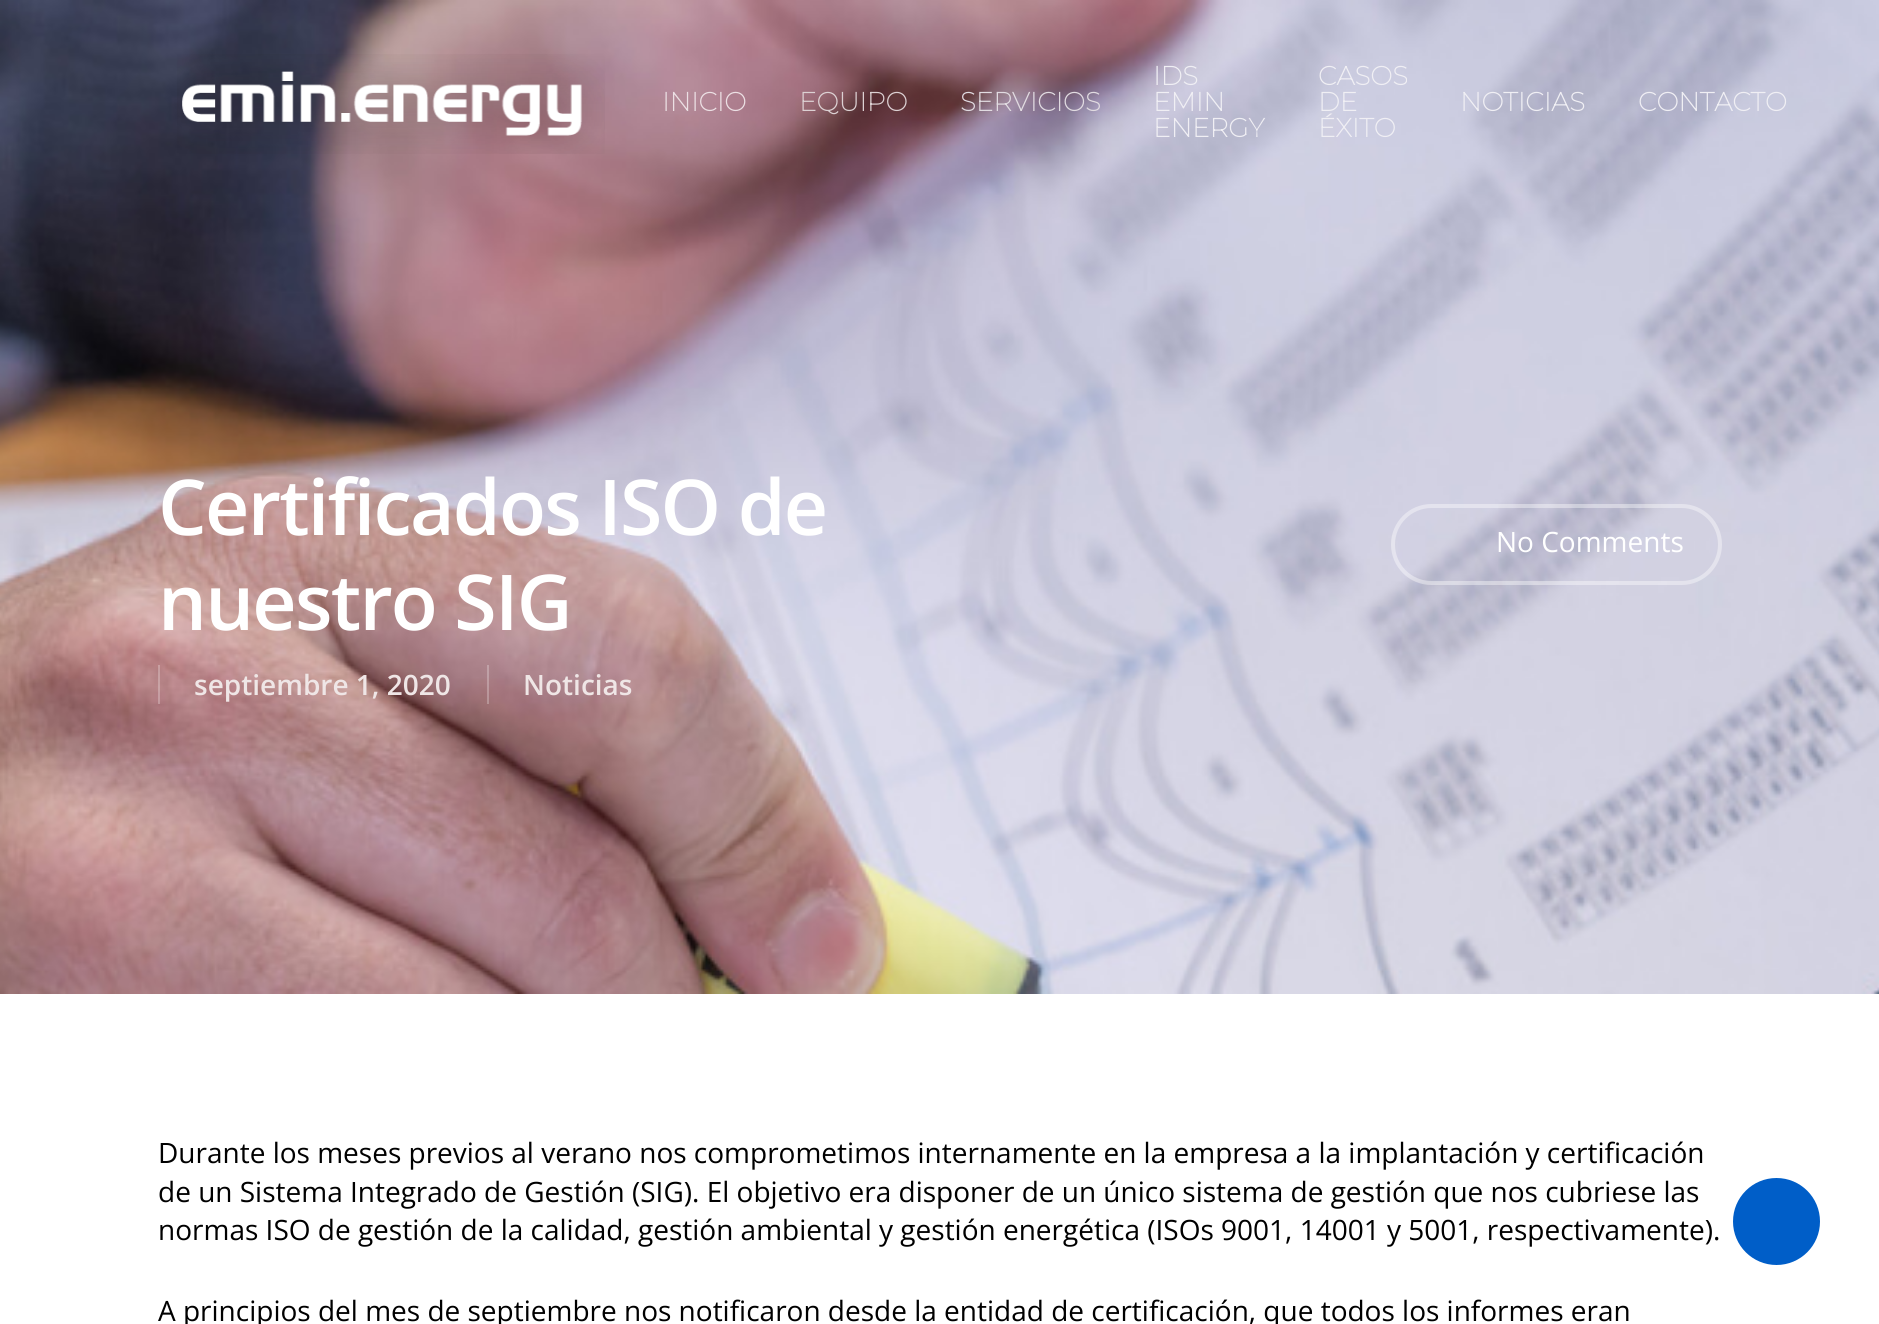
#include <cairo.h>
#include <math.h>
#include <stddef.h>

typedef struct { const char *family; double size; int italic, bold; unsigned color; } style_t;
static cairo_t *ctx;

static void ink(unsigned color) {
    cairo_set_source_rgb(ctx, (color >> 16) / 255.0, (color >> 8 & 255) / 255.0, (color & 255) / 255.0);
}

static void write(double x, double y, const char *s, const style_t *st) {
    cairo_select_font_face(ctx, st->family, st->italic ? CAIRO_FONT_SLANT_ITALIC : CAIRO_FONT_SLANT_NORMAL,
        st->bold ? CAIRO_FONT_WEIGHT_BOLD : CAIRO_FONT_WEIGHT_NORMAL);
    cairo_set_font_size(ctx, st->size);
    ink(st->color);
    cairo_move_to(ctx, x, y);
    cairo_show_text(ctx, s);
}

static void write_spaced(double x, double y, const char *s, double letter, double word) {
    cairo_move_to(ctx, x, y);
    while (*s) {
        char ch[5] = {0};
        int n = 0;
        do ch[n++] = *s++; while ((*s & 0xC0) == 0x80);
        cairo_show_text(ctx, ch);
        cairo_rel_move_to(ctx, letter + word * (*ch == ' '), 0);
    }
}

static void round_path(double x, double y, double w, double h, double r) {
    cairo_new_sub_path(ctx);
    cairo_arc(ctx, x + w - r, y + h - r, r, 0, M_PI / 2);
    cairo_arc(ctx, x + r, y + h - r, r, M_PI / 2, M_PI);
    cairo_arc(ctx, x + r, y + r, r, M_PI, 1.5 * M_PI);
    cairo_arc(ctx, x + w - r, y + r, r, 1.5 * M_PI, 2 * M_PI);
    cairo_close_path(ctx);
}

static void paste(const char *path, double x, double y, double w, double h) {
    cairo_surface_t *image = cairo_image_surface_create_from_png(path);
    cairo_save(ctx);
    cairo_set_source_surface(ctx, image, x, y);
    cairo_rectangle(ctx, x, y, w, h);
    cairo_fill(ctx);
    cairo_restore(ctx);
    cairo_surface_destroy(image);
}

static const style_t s1 = {"Montserrat", 26.25, 0, 1, 0xece0e4};
static const style_t s2 = {"Montserrat", 26.25, 0, 1, 0xdcd1d3};
static const style_t s3 = {"Montserrat", 26.25, 0, 1, 0xe1dbe1};
static const style_t s4 = {"Montserrat", 26.25, 0, 1, 0xf0eff4};
static const style_t s5 = {"Open Sans", 28, 0, 0, 0xffffff};
static const style_t s6 = {"Open Sans SemiBold", 28, 0, 0, 0xefe6e6};
static const style_t s7 = {"Open Sans", 28, 0, 0, 0x000000};

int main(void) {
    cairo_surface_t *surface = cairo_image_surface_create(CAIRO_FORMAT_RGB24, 1879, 1324);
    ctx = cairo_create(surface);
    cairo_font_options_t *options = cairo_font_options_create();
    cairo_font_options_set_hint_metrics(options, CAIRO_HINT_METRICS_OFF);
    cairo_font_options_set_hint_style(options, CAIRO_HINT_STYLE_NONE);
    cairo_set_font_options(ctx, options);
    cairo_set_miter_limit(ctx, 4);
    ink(0xffffff);
    cairo_paint(ctx);
    paste("pic2.png", 0, 0, 1879, 994);
    paste("pic1.png", 177, 54, 428, 100);
    write(662, 111, "INICIO", &s1);
    write(799, 111, "EQUIPO", &s2);
    write(960, 111, "SERVICIOS", &s3);
    write(1153, 85, "IDS", &s4);
    write(1153, 111, "EMIN", &s4);
    write(1153, 137, "ENERGY", &s4);
    write(1318, 85, "CASOS", &s4);
    write(1318, 111, "DE", &s4);
    write(1318, 137, "ÉXITO", &s4);
    write(1460, 111, "NOTICIAS", &s4);
    write(1638, 111, "CONTACTO", &s4);
    cairo_select_font_face(ctx, "Open Sans SemiBold", CAIRO_FONT_SLANT_NORMAL, CAIRO_FONT_WEIGHT_NORMAL);
    cairo_set_font_size(ctx, 77);
    ink(0xffffff);
    write_spaced(158, 535, "Certificados ISO de", -1.75, 0);
    write_spaced(158, 630, "nuestro SIG", -1.75, 0);
    round_path(1393, 506, 327, 77, 38.5);
    cairo_set_source_rgba(ctx, 1, 1, 1, 0.4);
    cairo_set_line_width(ctx, 4);
    cairo_stroke(ctx);
    write(1496, 552, "No Comments", &s5);
    write(194, 695, "septiembre 1, 2020", &s6);
    cairo_set_source_rgba(ctx, 1, 1, 1, 0.25);
    cairo_rectangle(ctx, 158, 665, 2, 39);
    cairo_fill(ctx);
    write(523, 695, "Noticias", &s6);
    cairo_set_source_rgba(ctx, 1, 1, 1, 0.25);
    cairo_rectangle(ctx, 487, 665, 2, 39);
    cairo_fill(ctx);
    write(158, 1163, "Durante los meses previos al verano nos comprometimos internamente en la empresa a la implantación y certificación", &s7);
    write(158, 1202, "de un Sistema Integrado de Gestión (SIG). El objetivo era disponer de un único sistema de gestión que nos cubriese las", &s7);
    write(158, 1240, "normas ISO de gestión de la calidad, gestión ambiental y gestión energética (ISOs 9001, 14001 y 5001, respectivamente).", &s7);
    write(158, 1321, "A principios del mes de septiembre nos notificaron desde la entidad de certificación, que todos los informes eran", &s7);
    ink(0x005ec8);
    cairo_new_path(ctx);
    cairo_arc(ctx, 1776.5, 1221.5, 43.5, 0, 2 * M_PI);
    cairo_fill(ctx);
    cairo_surface_write_to_png(surface, "screenshot.png");
    cairo_font_options_destroy(options);
    cairo_destroy(ctx);
    cairo_surface_destroy(surface);
    return 0;
}
